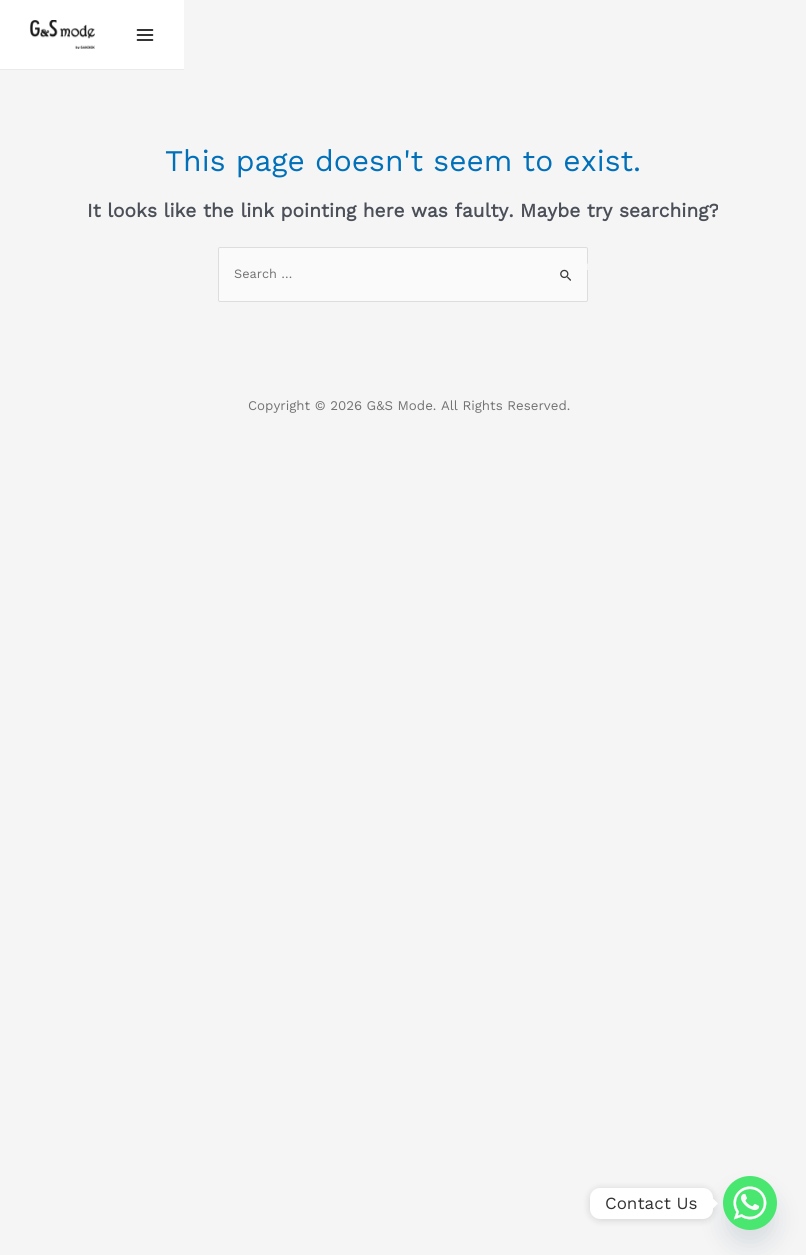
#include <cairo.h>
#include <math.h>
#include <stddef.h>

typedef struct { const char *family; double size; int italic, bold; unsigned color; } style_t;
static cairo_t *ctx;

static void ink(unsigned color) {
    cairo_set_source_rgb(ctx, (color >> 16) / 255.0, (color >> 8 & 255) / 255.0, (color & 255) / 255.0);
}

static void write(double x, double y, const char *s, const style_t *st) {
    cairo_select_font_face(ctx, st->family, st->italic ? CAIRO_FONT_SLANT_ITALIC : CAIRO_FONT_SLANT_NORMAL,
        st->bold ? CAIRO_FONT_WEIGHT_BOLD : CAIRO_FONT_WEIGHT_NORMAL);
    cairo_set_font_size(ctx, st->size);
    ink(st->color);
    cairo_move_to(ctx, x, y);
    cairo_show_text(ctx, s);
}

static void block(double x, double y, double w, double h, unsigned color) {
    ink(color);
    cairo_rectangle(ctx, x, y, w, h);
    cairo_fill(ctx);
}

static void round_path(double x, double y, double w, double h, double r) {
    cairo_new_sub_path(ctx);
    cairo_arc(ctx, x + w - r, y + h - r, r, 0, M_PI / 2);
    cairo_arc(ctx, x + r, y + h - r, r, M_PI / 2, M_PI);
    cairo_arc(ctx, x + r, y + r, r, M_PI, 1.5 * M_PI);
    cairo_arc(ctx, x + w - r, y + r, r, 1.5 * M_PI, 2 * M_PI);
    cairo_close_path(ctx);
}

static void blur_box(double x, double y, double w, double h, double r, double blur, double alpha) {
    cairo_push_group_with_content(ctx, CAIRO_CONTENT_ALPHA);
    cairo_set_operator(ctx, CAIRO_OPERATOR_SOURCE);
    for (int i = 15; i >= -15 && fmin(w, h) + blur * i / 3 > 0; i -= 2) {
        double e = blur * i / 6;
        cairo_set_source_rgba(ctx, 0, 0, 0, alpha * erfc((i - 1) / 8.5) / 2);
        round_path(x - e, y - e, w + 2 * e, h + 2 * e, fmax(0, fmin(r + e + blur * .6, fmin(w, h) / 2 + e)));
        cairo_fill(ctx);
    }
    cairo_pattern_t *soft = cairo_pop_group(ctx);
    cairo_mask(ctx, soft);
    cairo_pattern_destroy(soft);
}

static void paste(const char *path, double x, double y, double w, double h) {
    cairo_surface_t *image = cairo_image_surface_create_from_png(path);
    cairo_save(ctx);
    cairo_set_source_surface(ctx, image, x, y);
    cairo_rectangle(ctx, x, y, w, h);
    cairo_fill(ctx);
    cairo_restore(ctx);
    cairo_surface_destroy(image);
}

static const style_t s1 = {"Work Sans", 30, 0, 0, 0x0170b9};
static const style_t s2 = {"Work Sans", 19.15, 0, 1, 0x4b4f58};
static const style_t s3 = {"Work Sans", 12.75, 0, 0, 0xf7f7f7};
static const style_t s4 = {"Work Sans", 12.75, 0, 0, 0x737373};
static const style_t s5 = {"Work Sans", 13.3, 0, 0, 0x737373};
static const style_t s6 = {"Work Sans", 17, 0, 0, 0x333333};

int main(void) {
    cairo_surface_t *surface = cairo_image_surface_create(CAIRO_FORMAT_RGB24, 806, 1255);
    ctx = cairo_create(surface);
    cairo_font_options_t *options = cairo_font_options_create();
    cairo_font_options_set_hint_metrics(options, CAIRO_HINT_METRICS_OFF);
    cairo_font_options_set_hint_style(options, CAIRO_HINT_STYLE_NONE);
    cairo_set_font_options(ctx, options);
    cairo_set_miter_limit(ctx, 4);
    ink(0xf5f5f5);
    cairo_paint(ctx);
    block(0, 0, 184, 69, 0xffffff);
    block(0, 69, 184, 1, 0xeaeaea);
    paste("pic1.png", 29, 20, 66, 29);
    paste("pic2.png", 136, 29, 18, 12);
    write(165, 171, "This page doesn't seem to exist.", &s1);
    write(87, 217, "It looks like the link pointing here was faulty. Maybe try searching?", &s2);
    ink(0xfafafa);
    round_path(218.5, 247.5, 369, 54, 1.5);
    cairo_fill_preserve(ctx);
    ink(0xdddddd);
    cairo_set_line_width(ctx, 1);
    cairo_stroke(ctx);
    cairo_save(ctx);
    round_path(543, 247, 45, 39, 2);
    cairo_clip(ctx);
    write(586, 270, "r", &s3);
    cairo_restore(ctx);
    write(234, 278, "Search …", &s4);
    paste("pic3.png", 560, 269, 11, 12);
    write(248, 410, "Copyright © 2026 G&S Mode. All Rights Reserved.", &s5);
    ink(0x49687e);
    blur_box(723, 1192, 54, 54, 27, 12, 0.16);
    paste("pic4.png", 723, 1176, 54, 54);
    ink(0x000000);
    blur_box(590, 1189, 123, 31, 10, 4, 0.15);
    ink(0xffffff);
    round_path(590, 1188, 123, 31, 10);
    cairo_fill(ctx);
    write(605, 1209, "Contact Us", &s6);
    ink(0xffffff);
    cairo_new_path(ctx);
    cairo_move_to(ctx, 713, 1208.5);
    cairo_line_to(ctx, 713, 1198.5);
    cairo_line_to(ctx, 718, 1203.5);
    cairo_close_path(ctx);
    cairo_fill(ctx);
    cairo_surface_write_to_png(surface, "screenshot.png");
    cairo_font_options_destroy(options);
    cairo_destroy(ctx);
    cairo_surface_destroy(surface);
    return 0;
}
